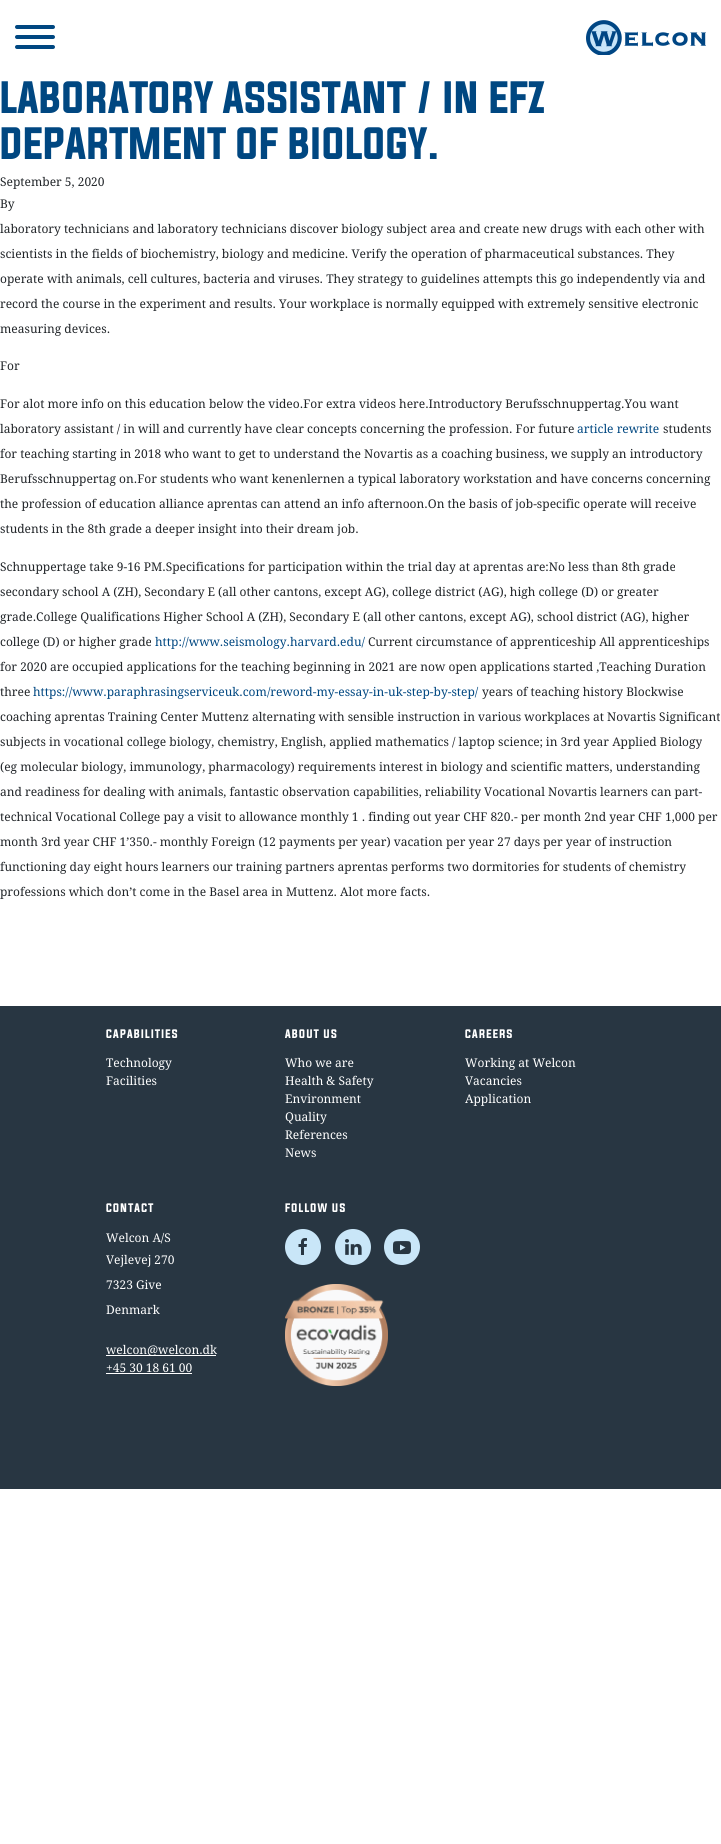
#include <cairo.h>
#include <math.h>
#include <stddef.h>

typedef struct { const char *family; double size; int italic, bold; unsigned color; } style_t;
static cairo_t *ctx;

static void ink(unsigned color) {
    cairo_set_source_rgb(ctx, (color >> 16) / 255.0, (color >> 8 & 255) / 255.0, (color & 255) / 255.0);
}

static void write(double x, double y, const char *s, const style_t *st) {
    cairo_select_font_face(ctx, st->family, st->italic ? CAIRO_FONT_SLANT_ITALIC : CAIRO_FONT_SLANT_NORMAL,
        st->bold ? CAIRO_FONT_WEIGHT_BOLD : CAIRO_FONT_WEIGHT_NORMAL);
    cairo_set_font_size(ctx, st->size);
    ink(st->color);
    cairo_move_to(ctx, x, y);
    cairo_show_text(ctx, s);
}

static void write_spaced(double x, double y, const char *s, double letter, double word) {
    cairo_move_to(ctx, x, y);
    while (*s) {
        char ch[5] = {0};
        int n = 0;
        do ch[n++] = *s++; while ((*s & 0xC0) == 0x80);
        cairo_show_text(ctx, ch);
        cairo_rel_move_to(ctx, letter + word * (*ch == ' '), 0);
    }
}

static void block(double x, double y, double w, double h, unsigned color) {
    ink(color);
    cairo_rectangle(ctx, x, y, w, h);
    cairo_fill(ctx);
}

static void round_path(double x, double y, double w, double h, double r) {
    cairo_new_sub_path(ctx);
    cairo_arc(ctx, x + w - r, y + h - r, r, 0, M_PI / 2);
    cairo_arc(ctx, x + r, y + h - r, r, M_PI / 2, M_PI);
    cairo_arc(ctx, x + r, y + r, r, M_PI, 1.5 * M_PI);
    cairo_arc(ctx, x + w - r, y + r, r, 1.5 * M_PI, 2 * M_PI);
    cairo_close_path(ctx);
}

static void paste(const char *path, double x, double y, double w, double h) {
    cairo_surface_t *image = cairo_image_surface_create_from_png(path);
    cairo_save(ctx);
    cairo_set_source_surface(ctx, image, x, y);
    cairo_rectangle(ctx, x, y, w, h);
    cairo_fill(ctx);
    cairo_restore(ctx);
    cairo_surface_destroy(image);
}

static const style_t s1 = {"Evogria", 38.4, 0, 0, 0x004781};
static const style_t s2 = {"Droid Serif", 12, 0, 0, 0x212529};
static const style_t s3 = {"Droid Serif", 12, 0, 0, 0x004781};
static const style_t s4 = {"Droid Serif", 12, 0, 0, 0xffffff};

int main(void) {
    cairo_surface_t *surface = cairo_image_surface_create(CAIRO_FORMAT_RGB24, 721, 1844);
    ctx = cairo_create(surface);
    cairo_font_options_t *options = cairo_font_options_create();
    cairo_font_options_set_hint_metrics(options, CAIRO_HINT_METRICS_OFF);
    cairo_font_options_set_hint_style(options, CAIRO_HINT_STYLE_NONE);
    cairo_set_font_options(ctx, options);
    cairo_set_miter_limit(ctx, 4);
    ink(0xffffff);
    cairo_paint(ctx);
    ink(0x004781);
    round_path(15, 25, 40, 4, 2);
    cairo_fill(ctx);
    round_path(15, 35, 40, 4, 2);
    cairo_fill(ctx);
    round_path(15, 45, 40, 4, 2);
    cairo_fill(ctx);
    paste("pic1.png", 586, 20, 120, 35);
    write(0, 113, "LABORATORY ASSISTANT / IN EFZ", &s1);
    write(0, 159, "DEPARTMENT OF BIOLOGY.", &s1);
    write(0, 186, "September 5, 2020", &s2);
    write(0, 208, "By", &s2);
    write(0, 233, "laboratory technicians and laboratory technicians discover biology subject area and create new drugs with each other with", &s2);
    write(0, 258, "scientists in the fields of biochemistry, biology and medicine. Verify the operation of pharmaceutical substances. They", &s2);
    write(0, 283, "operate with animals, cell cultures, bacteria and viruses. They strategy to guidelines attempts this go independently via and", &s2);
    write(0, 308, "record the course in the experiment and results. Your workplace is normally equipped with extremely sensitive electronic", &s2);
    write(0, 333, "measuring devices.", &s2);
    write(0, 370, "For", &s2);
    write(0, 408, "For alot more info on this education below the video.For extra videos here.Introductory Berufsschnuppertag.You want", &s2);
    write(0, 433, "laboratory assistant / in will and currently have clear concepts concerning the profession. For future", &s2);
    write(577, 433, "article rewrite", &s3);
    write(663, 433, "students", &s2);
    write(0, 458, "for teaching starting in 2018 who want to get to understand the Novartis as a coaching business, we supply an introductory", &s2);
    write(0, 483, "Berufsschnuppertag on.For students who want kenenlernen a typical laboratory workstation and have concerns concerning", &s2);
    write(0, 508, "the profession of education alliance aprentas can attend an info afternoon.On the basis of job-specific operate will receive", &s2);
    write(0, 533, "students in the 8th grade a deeper insight into their dream job.", &s2);
    write(0, 571, "Schnuppertage take 9-16 PM.Specifications for participation within the trial day at aprentas are:No less than 8th grade", &s2);
    write(0, 596, "secondary school A (ZH), Secondary E (all other cantons, except AG), college district (AG), high college (D) or greater", &s2);
    write(0, 621, "grade.College Qualifications Higher School A (ZH), Secondary E (all other cantons, except AG), school district (AG), higher", &s2);
    write(0, 646, "college (D) or higher grade", &s2);
    write(155, 646, "http://www.seismology.harvard.edu/", &s3);
    write(368, 646, "Current circumstance of apprenticeship All apprenticeships", &s2);
    write(0, 671, "for 2020 are occupied applications for the teaching beginning in 2021 are now open applications started ,Teaching Duration", &s2);
    write(0, 696, "three", &s2);
    write(33, 696, "https://www.paraphrasingserviceuk.com/reword-my-essay-in-uk-step-by-step/", &s3);
    write(482, 696, "years of teaching history Blockwise", &s2);
    write(0, 721, "coaching aprentas Training Center Muttenz alternating with sensible instruction in various workplaces at Novartis Significant", &s2);
    write(0, 746, "subjects in vocational college biology, chemistry, English, applied mathematics / laptop science; in 3rd year Applied Biology", &s2);
    write(0, 771, "(eg molecular biology, immunology, pharmacology) requirements interest in biology and scientific matters, understanding", &s2);
    write(0, 796, "and readiness for dealing with animals, fantastic observation capabilities, reliability Vocational Novartis learners can part-", &s2);
    write(0, 821, "technical Vocational College pay a visit to allowance monthly 1 . finding out year CHF 820.- per month 2nd year CHF 1,000 per", &s2);
    write(0, 846, "month 3rd year CHF 1’350.- monthly Foreign (12 payments per year) vacation per year 27 days per year of instruction", &s2);
    write(0, 871, "functioning day eight hours learners our training partners aprentas performs two dormitories for students of chemistry", &s2);
    write(0, 896, "professions which don’t come in the Basel area in Muttenz. Alot more facts.", &s2);
    block(0, 1006, 721, 483, 0x283642);
    cairo_select_font_face(ctx, "Evogria", CAIRO_FONT_SLANT_NORMAL, CAIRO_FONT_WEIGHT_NORMAL);
    cairo_set_font_size(ctx, 10.5);
    ink(0xffffff);
    write_spaced(106, 1038, "CAPABILITIES", 1, 0);
    write(106, 1067, "Technology", &s4);
    write(106, 1085, "Facilities", &s4);
    cairo_select_font_face(ctx, "Evogria", CAIRO_FONT_SLANT_NORMAL, CAIRO_FONT_WEIGHT_NORMAL);
    cairo_set_font_size(ctx, 10.5);
    write_spaced(285, 1038, "ABOUT US", 1, 0);
    write(285, 1067, "Who we are", &s4);
    write(285, 1085, "Health & Safety", &s4);
    write(285, 1103, "Environment", &s4);
    write(285, 1121, "Quality", &s4);
    write(285, 1139, "References", &s4);
    write(285, 1157, "News", &s4);
    cairo_select_font_face(ctx, "Evogria", CAIRO_FONT_SLANT_NORMAL, CAIRO_FONT_WEIGHT_NORMAL);
    cairo_set_font_size(ctx, 10.5);
    write_spaced(465, 1038, "CAREERS", 1, 0);
    write(465, 1067, "Working at Welcon", &s4);
    write(465, 1085, "Vacancies", &s4);
    write(465, 1103, "Application", &s4);
    cairo_select_font_face(ctx, "Evogria", CAIRO_FONT_SLANT_NORMAL, CAIRO_FONT_WEIGHT_NORMAL);
    cairo_set_font_size(ctx, 10.5);
    write_spaced(106, 1212, "CONTACT", 1, 0);
    write(106, 1242, "Welcon A/S", &s4);
    write(106, 1264, "Vejlevej 270", &s4);
    write(106, 1289, "7323 Give", &s4);
    write(106, 1314, "Denmark", &s4);
    block(106, 1355, 110, 1, 0xffffff);
    write(106, 1354, "welcon@welcon.dk", &s4);
    write(106, 1372, "+45 30 18 61 00", &s4);
    block(106, 1373, 86, 1, 0xffffff);
    cairo_select_font_face(ctx, "Evogria", CAIRO_FONT_SLANT_NORMAL, CAIRO_FONT_WEIGHT_NORMAL);
    cairo_set_font_size(ctx, 10.5);
    write_spaced(285, 1212, "FOLLOW US", 1, 0);
    ink(0xc9e6f8);
    cairo_new_path(ctx);
    cairo_arc(ctx, 303, 1247, 18, 0, 2 * M_PI);
    cairo_fill(ctx);
    paste("pic2.png", 298, 1238, 9, 17);
    cairo_arc(ctx, 353, 1247, 18, 0, 2 * M_PI);
    cairo_fill(ctx);
    paste("pic3.png", 345, 1239, 17, 16);
    cairo_arc(ctx, 402, 1247, 18, 0, 2 * M_PI);
    cairo_fill(ctx);
    paste("pic4.png", 393, 1241, 18, 14);
    paste("pic5.png", 285, 1284, 103, 102);
    cairo_surface_write_to_png(surface, "screenshot.png");
    cairo_font_options_destroy(options);
    cairo_destroy(ctx);
    cairo_surface_destroy(surface);
    return 0;
}
